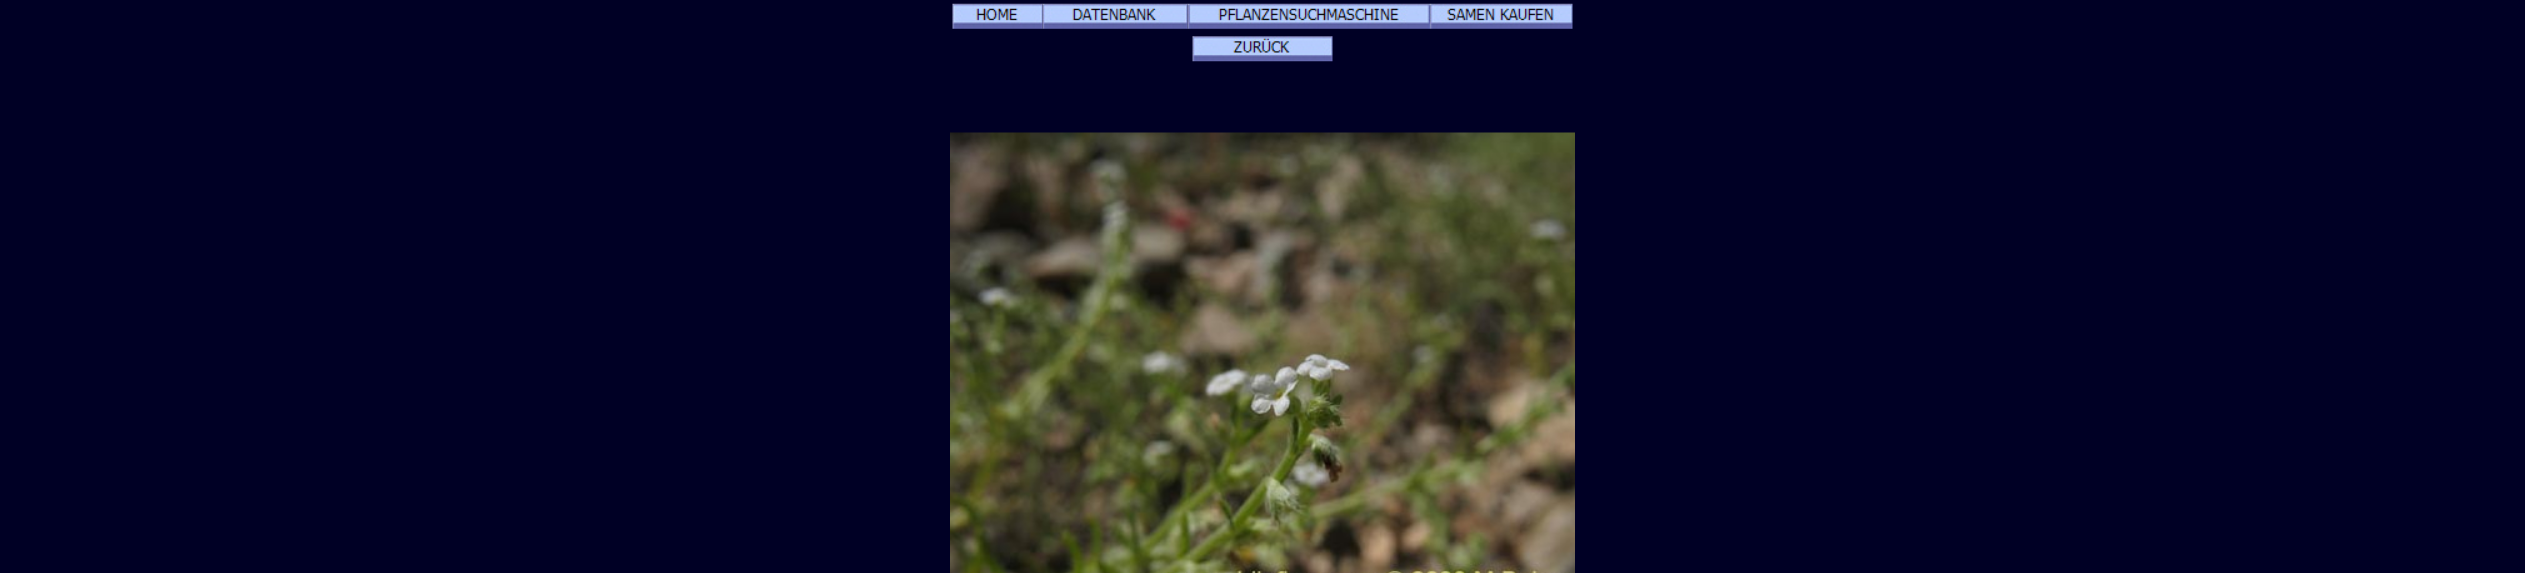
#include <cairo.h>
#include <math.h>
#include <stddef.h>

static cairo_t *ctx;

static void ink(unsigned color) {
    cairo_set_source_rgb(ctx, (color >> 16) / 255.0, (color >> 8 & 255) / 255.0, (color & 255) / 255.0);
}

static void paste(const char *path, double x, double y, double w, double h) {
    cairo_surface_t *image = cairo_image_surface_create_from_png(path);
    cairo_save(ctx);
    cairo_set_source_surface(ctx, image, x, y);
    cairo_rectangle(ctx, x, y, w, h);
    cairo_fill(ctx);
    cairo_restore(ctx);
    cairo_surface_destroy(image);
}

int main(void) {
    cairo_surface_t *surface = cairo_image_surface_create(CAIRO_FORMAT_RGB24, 2525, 573);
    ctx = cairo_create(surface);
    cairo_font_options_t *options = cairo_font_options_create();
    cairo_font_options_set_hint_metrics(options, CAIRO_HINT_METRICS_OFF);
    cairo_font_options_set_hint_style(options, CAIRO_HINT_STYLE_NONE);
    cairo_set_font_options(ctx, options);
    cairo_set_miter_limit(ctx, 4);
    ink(0x000025);
    cairo_paint(ctx);
    paste("pic1.png", 952, 3, 91, 26);
    paste("pic2.png", 1042, 3, 146, 26);
    paste("pic3.png", 1187, 3, 243, 26);
    paste("pic4.png", 1430, 3, 143, 26);
    paste("pic5.png", 1192, 36, 141, 26);
    paste("pic6.png", 950, 132, 625, 441);
    cairo_surface_write_to_png(surface, "screenshot.png");
    cairo_font_options_destroy(options);
    cairo_destroy(ctx);
    cairo_surface_destroy(surface);
    return 0;
}
